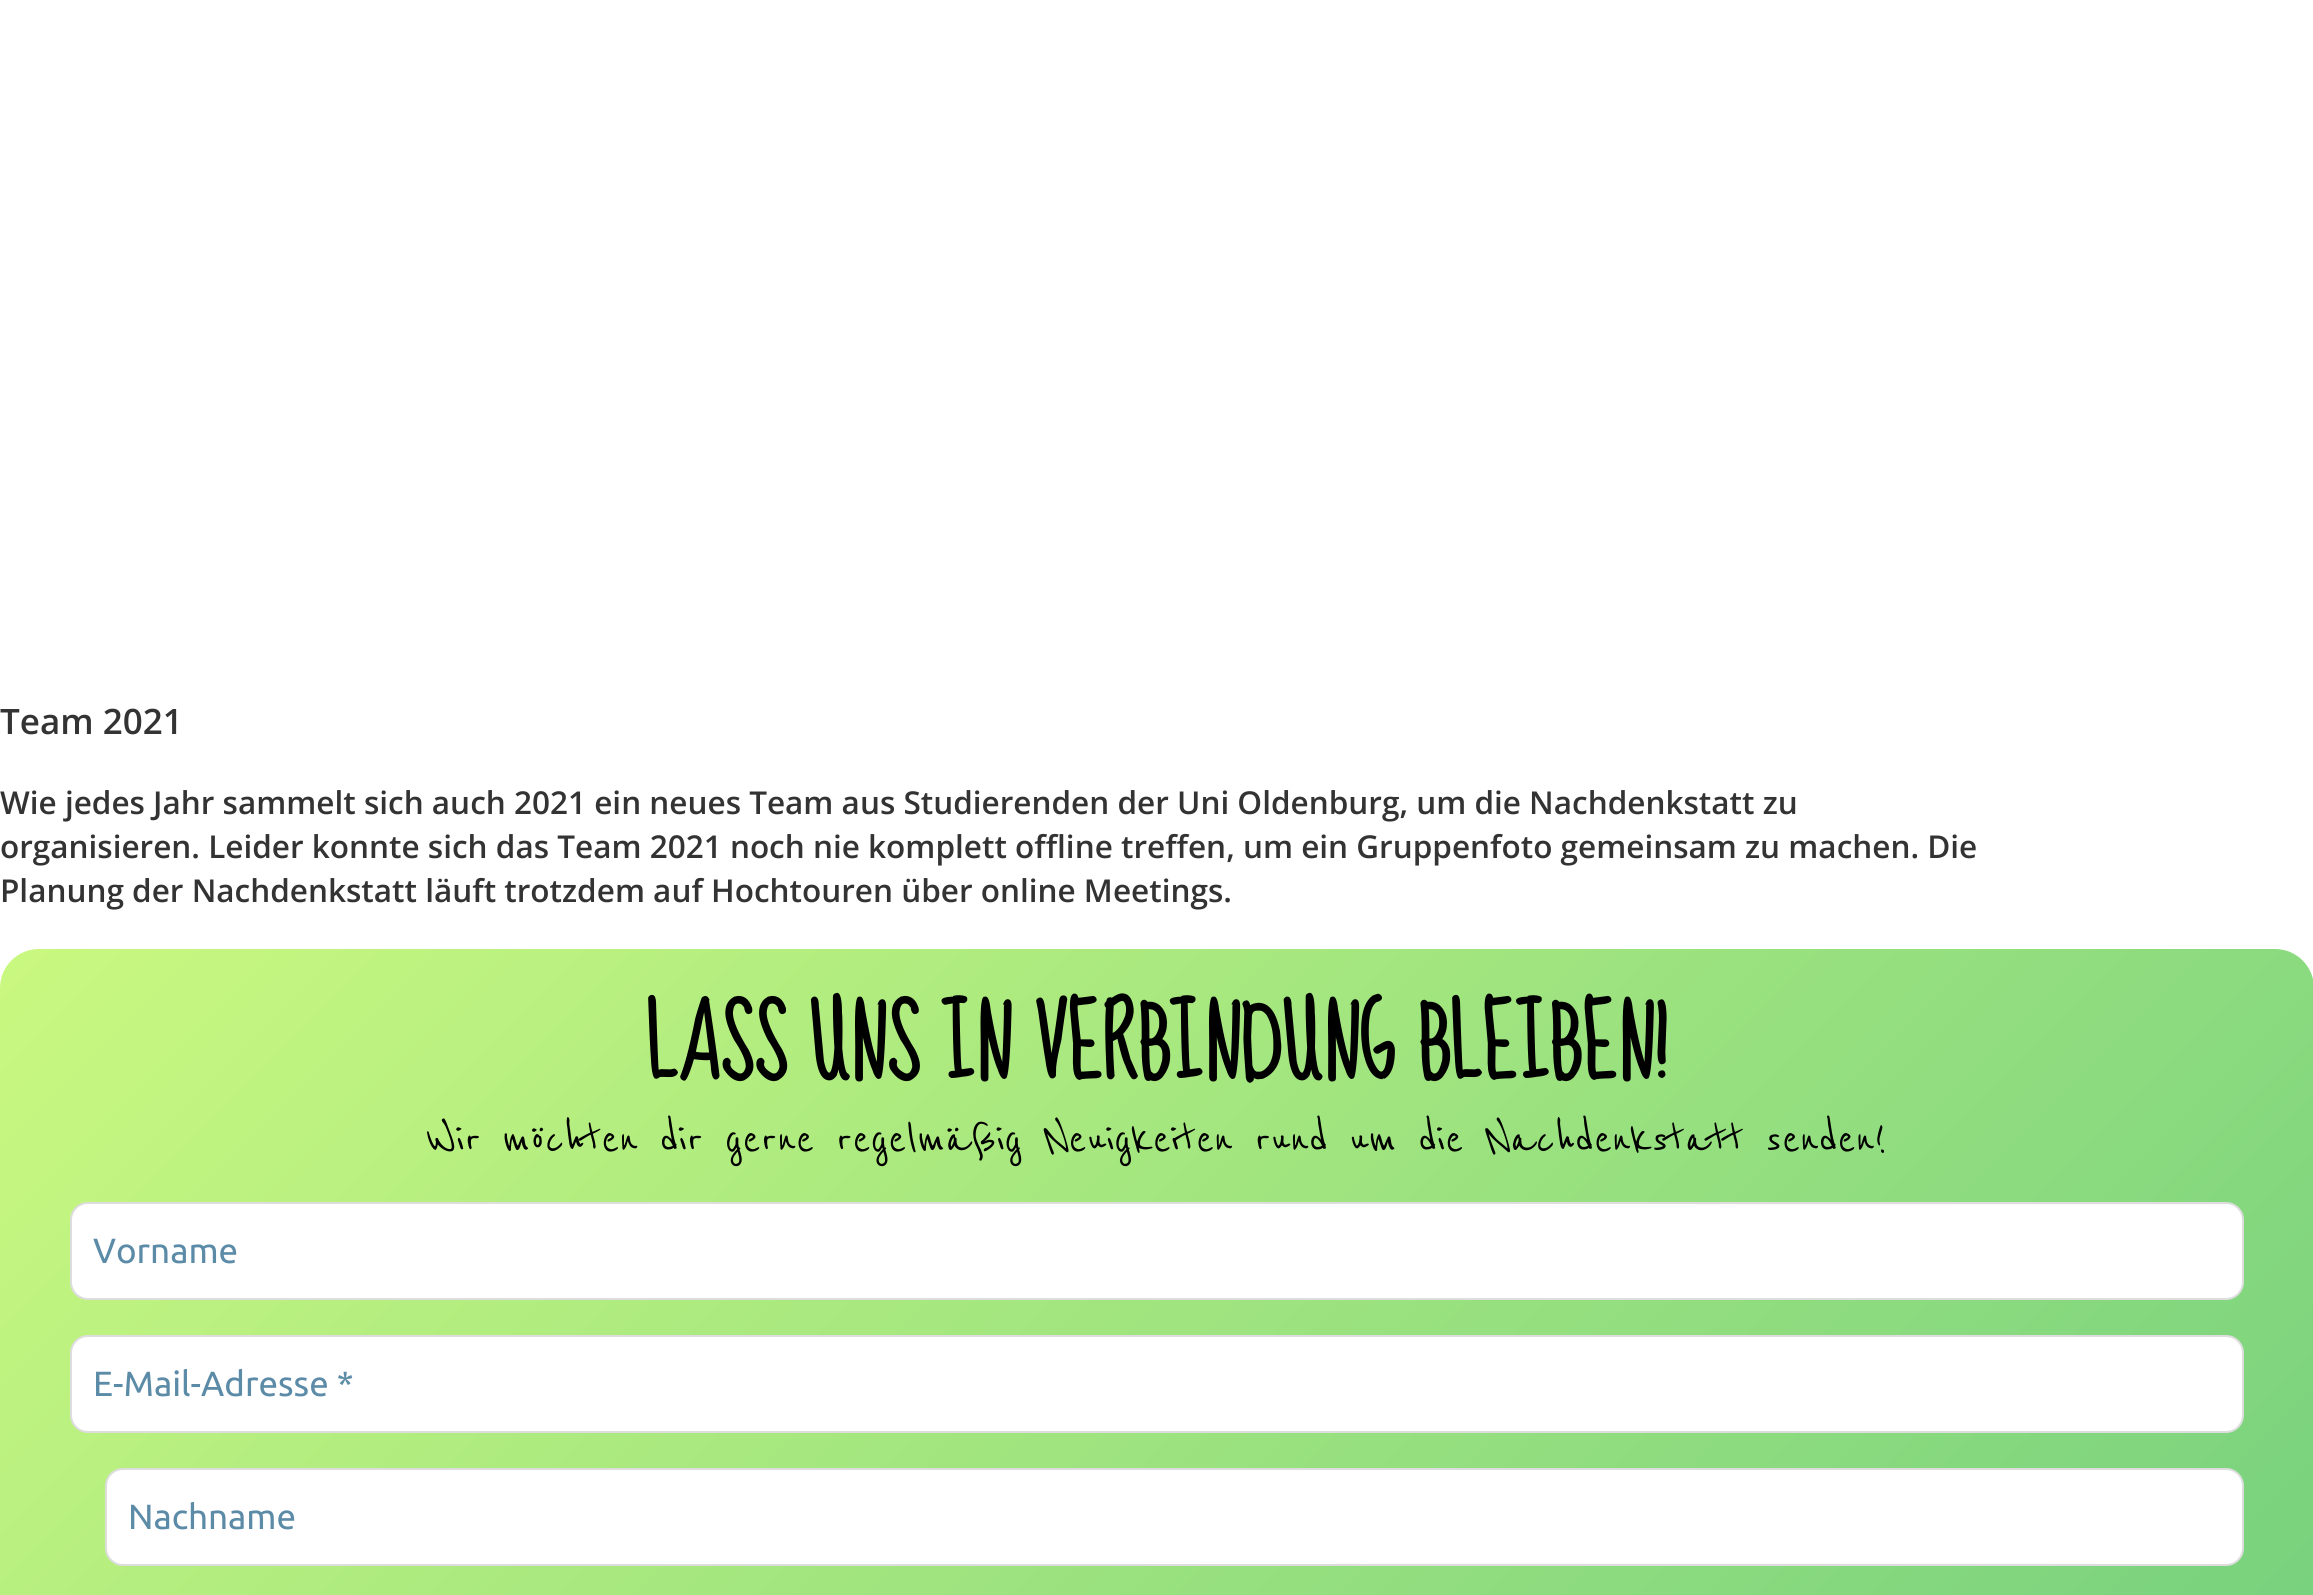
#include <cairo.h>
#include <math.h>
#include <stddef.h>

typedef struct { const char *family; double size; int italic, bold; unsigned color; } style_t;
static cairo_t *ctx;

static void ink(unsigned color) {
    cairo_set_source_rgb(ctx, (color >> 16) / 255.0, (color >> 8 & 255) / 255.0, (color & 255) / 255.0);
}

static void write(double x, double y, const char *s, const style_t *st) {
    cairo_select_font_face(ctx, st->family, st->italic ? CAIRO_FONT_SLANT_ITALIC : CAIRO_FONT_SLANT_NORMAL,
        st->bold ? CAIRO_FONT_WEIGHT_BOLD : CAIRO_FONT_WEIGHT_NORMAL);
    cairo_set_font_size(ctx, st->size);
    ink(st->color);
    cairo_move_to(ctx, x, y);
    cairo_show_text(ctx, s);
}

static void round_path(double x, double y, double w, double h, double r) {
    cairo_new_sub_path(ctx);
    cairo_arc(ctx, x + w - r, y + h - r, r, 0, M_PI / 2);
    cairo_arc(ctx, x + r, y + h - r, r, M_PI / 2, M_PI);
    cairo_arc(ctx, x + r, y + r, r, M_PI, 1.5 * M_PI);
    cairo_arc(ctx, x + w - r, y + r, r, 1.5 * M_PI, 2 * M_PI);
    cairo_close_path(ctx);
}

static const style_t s1 = {"Open Sans SemiBold", 35, 0, 0, 0x333333};
static const style_t s2 = {"Open Sans SemiBold", 31.5, 0, 0, 0x333333};
static const style_t s3 = {"Sue Ellen Francisco", 87.5, 0, 1, 0x000000};
static const style_t s4 = {"Reenie Beanie Medium", 52.5, 0, 0, 0x000000};
static const style_t s5 = {"Ubuntu", 35, 0, 0, 0x5b8ba7};

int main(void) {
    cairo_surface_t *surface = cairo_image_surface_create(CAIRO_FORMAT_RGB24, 2313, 1595);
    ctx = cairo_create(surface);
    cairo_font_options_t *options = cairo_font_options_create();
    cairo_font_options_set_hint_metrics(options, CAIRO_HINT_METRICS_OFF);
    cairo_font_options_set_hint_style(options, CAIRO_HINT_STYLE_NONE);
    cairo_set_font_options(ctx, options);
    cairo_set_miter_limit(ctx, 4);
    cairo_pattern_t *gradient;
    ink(0xffffff);
    cairo_paint(ctx);
    write(0, 734, "Team 2021", &s1);
    write(0, 814, "Wie jedes Jahr sammelt sich auch 2021 ein neues Team aus Studierenden der Uni Oldenburg, um die Nachdenkstatt zu", &s2);
    write(0, 858, "organisieren. Leider konnte sich das Team 2021 noch nie komplett offline treffen, um ein Gruppenfoto gemeinsam zu machen. Die", &s2);
    write(0, 902, "Planung der Nachdenkstatt läuft trotzdem auf Hochtouren über online Meetings.", &s2);
    gradient = cairo_pattern_create_linear(345, 603, 1968, 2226);
    cairo_pattern_add_color_stop_rgba(gradient, 0, 0.792, 0.973, 0.502, 1);
    cairo_pattern_add_color_stop_rgba(gradient, 1, 0.443, 0.808, 0.494, 1);
    cairo_set_source(ctx, gradient);
    cairo_pattern_destroy(gradient);
    round_path(0, 949, 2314, 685, 39);
    cairo_fill(ctx);
    write(646, 1078, "LASS UNS IN VERBINDUNG BLEIBEN!", &s3);
    write(427, 1153, "Wir möchten dir gerne regelmäßig Neuigkeiten rund um die Nachdenkstatt senden!", &s4);
    ink(0xffffff);
    round_path(71, 1203, 2172, 96, 17);
    cairo_fill_preserve(ctx);
    ink(0xdddddd);
    cairo_stroke(ctx);
    write(93, 1263, "Vorname", &s5);
    ink(0xffffff);
    round_path(71, 1336, 2172, 96, 17);
    cairo_fill_preserve(ctx);
    ink(0xdddddd);
    cairo_stroke(ctx);
    write(93, 1396, "E-Mail-Adresse *", &s5);
    ink(0xffffff);
    round_path(106, 1469, 2137, 96, 17);
    cairo_fill_preserve(ctx);
    ink(0xdddddd);
    cairo_stroke(ctx);
    write(128, 1529, "Nachname", &s5);
    cairo_surface_write_to_png(surface, "screenshot.png");
    cairo_font_options_destroy(options);
    cairo_destroy(ctx);
    cairo_surface_destroy(surface);
    return 0;
}
